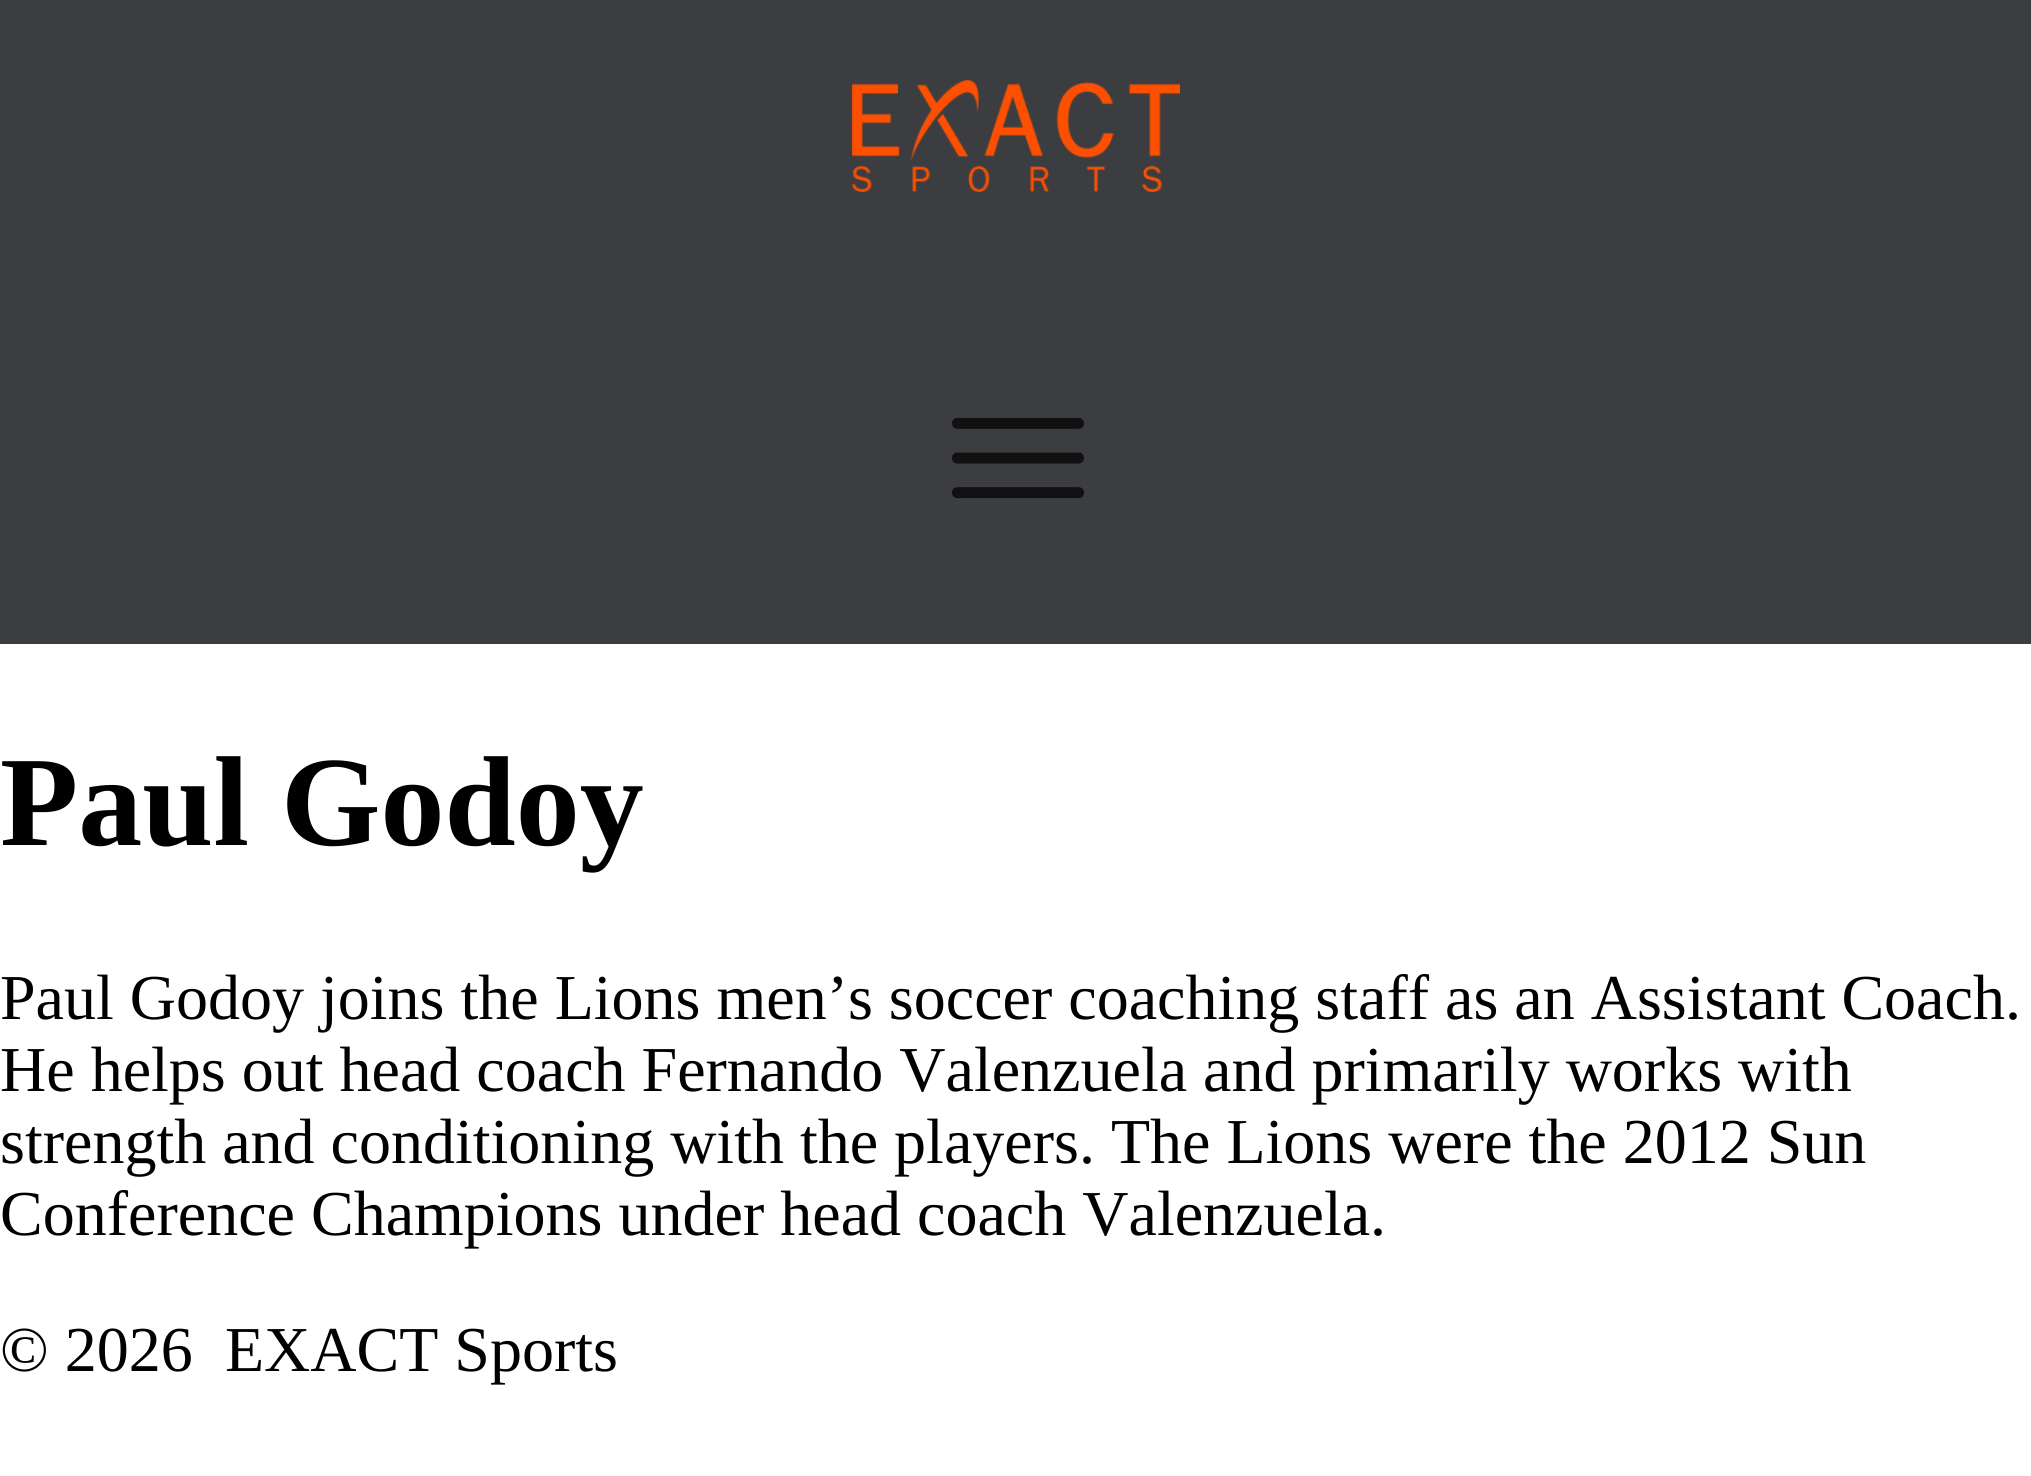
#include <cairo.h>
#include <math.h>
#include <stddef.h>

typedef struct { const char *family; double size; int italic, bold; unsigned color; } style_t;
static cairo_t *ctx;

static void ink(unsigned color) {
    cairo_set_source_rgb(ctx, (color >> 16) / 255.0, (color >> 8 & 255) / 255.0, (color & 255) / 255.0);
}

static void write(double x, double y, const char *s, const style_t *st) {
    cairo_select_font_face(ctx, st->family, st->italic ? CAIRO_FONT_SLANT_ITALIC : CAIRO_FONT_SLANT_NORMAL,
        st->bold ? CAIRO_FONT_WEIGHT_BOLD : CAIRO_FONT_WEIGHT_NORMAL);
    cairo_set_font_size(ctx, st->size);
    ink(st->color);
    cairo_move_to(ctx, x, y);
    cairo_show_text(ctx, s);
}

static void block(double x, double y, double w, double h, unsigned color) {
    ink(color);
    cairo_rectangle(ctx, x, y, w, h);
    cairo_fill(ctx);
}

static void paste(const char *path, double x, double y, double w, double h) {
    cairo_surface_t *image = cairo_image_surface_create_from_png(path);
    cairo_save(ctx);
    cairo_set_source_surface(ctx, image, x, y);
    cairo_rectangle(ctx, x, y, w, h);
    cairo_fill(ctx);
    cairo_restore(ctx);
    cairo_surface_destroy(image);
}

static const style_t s1 = {"Liberation Serif", 128, 0, 1, 0x000000};
static const style_t s2 = {"Liberation Serif", 64, 0, 0, 0x000000};

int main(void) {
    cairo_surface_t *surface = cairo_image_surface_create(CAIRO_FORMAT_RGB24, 2031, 1476);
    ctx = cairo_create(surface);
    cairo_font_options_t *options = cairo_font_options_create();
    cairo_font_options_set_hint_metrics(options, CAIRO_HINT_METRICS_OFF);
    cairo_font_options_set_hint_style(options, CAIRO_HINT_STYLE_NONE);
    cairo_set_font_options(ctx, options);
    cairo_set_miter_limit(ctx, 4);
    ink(0xffffff);
    cairo_paint(ctx);
    block(0, 0, 2031, 644, 0x3c3d41);
    paste("pic1.png", 852, 80, 328, 112);
    paste("pic2.png", 952, 417, 132, 82);
    write(0, 845, "Paul Godoy", &s1);
    write(0, 1019, "Paul Godoy joins the Lions men’s soccer coaching staff as an Assistant Coach.", &s2);
    write(0, 1091, "He helps out head coach Fernando Valenzuela and primarily works with", &s2);
    write(0, 1163, "strength and conditioning with the players. The Lions were the 2012 Sun", &s2);
    write(0, 1235, "Conference Champions under head coach Valenzuela.", &s2);
    write(0, 1371, "© 2026", &s2);
    write(225, 1371, "EXACT Sports", &s2);
    cairo_surface_write_to_png(surface, "screenshot.png");
    cairo_font_options_destroy(options);
    cairo_destroy(ctx);
    cairo_surface_destroy(surface);
    return 0;
}
